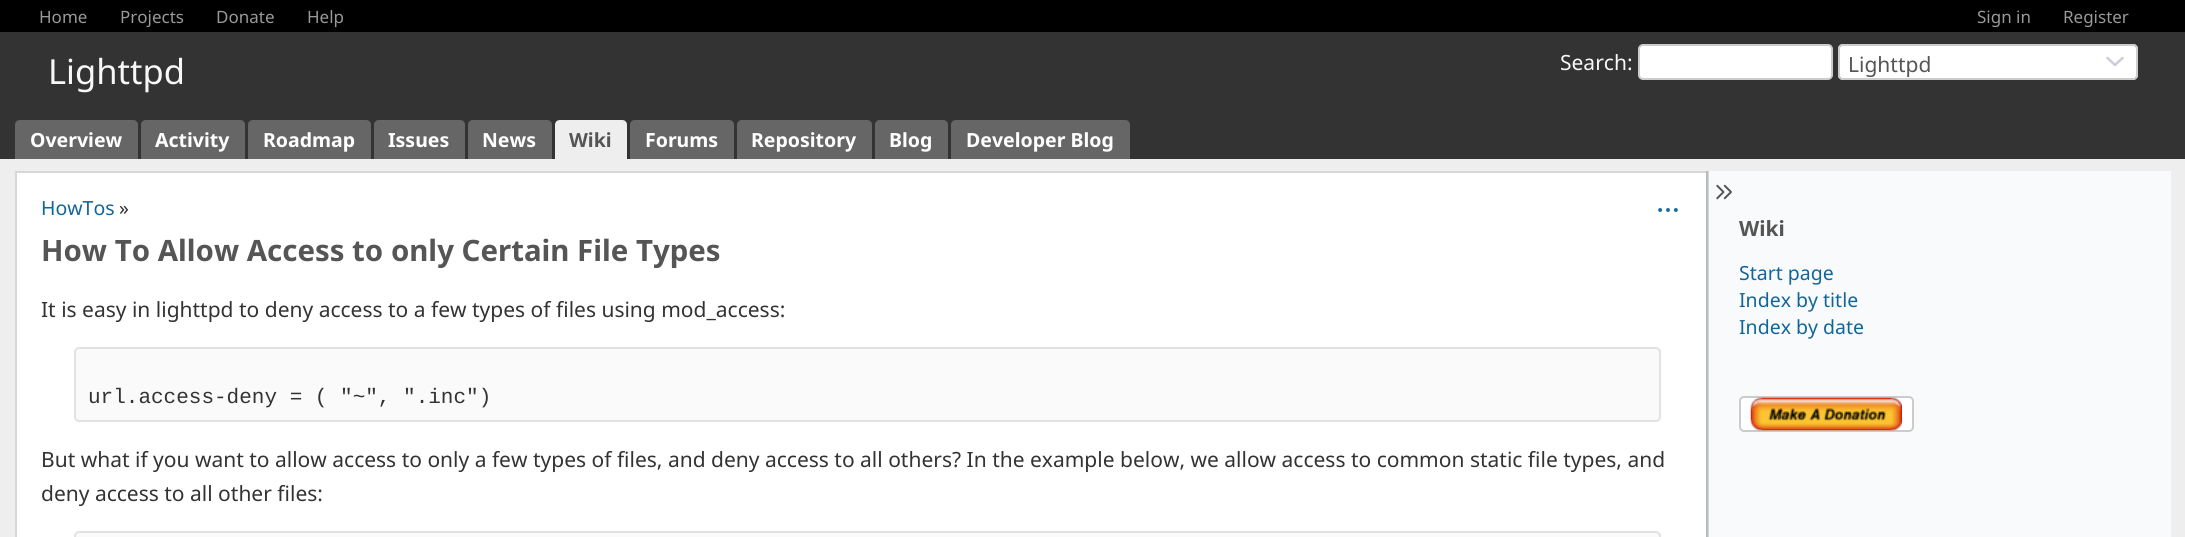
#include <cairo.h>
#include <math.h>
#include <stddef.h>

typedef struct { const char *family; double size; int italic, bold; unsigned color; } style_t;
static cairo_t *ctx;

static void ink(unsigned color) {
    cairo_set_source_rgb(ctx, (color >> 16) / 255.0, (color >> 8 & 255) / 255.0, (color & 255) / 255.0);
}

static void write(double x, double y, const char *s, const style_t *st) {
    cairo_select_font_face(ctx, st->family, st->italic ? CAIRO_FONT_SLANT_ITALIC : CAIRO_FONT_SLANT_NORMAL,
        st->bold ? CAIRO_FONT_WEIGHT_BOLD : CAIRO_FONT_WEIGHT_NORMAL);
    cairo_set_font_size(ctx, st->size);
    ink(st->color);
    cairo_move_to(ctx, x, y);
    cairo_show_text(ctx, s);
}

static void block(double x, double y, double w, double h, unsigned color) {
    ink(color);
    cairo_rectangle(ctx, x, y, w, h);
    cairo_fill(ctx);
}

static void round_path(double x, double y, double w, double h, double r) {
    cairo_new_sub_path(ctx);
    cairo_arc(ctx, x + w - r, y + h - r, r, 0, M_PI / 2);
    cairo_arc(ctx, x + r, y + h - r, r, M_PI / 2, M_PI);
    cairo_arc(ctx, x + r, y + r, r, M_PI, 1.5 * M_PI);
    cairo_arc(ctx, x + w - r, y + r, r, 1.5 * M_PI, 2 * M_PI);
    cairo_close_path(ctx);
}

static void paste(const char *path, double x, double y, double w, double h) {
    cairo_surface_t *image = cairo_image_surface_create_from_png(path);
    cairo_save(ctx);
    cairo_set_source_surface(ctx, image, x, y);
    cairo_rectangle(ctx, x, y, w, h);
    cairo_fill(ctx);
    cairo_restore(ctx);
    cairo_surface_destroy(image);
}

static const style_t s1 = {"Noto Sans", 17, 0, 0, 0x999999};
static const style_t s2 = {"Noto Sans", 34.5, 0, 0, 0xf8f8f8};
static const style_t s3 = {"Noto Sans", 21, 0, 0, 0xf8f8f8};
static const style_t s4 = {"Noto Sans", 21, 0, 0, 0x555555};
static const style_t s5 = {"Noto Sans", 19.5, 0, 1, 0xffffff};
static const style_t s6 = {"Noto Sans", 19.5, 0, 1, 0x555555};
static const style_t s7 = {"Noto Sans", 19.5, 0, 0, 0x116699};
static const style_t s8 = {"Noto Sans", 19.5, 0, 0, 0x333333};
static const style_t s9 = {"Noto Sans", 29.4, 0, 1, 0x555555};
static const style_t s10 = {"Noto Sans", 21, 0, 0, 0x333333};
static const style_t s11 = {"Liberation Mono", 21, 0, 0, 0x333333};
static const style_t s12 = {"Noto Sans", 21, 0, 1, 0x555555};

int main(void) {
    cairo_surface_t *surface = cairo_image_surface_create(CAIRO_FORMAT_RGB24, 2185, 537);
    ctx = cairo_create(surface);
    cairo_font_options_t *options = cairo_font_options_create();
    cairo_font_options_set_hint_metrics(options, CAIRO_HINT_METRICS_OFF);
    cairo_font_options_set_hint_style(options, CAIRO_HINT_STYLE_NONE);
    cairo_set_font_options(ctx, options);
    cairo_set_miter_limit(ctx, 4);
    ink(0xeeeeee);
    cairo_paint(ctx);
    block(0, 0, 2185, 32, 0x000000);
    write(39, 23, "Home", &s1);
    write(120, 23, "Projects", &s1);
    write(216, 23, "Donate", &s1);
    write(307, 23, "Help", &s1);
    write(1977, 23, "Sign in", &s1);
    write(2063, 23, "Register", &s1);
    block(0, 32, 2185, 127, 0x333333);
    write(48, 84, "Lighttpd", &s2);
    write(1560, 70, "Search:", &s3);
    ink(0xffffff);
    round_path(1639, 45, 193, 34, 4);
    cairo_fill_preserve(ctx);
    ink(0xcccccc);
    cairo_stroke(ctx);
    ink(0xffffff);
    round_path(1838, 44, 300, 36, 5);
    cairo_fill(ctx);
    cairo_new_path(ctx);
    cairo_move_to(ctx, 2107.5, 58);
    cairo_line_to(ctx, 2115, 65);
    cairo_line_to(ctx, 2122.5, 58);
    ink(0xccccdd);
    cairo_set_line_width(ctx, 2.5);
    cairo_set_line_cap(ctx, CAIRO_LINE_CAP_ROUND);
    cairo_set_line_join(ctx, CAIRO_LINE_JOIN_ROUND);
    cairo_stroke(ctx);
    round_path(1839, 45, 298, 34, 4);
    ink(0xcccccc);
    cairo_set_line_width(ctx, 2);
    cairo_set_line_cap(ctx, CAIRO_LINE_CAP_BUTT);
    cairo_set_line_join(ctx, CAIRO_LINE_JOIN_MITER);
    cairo_stroke(ctx);
    write(1848, 72, "Lighttpd", &s4);
    ink(0x666666);
    cairo_new_path(ctx);
    cairo_move_to(ctx, 20, 120);
    cairo_line_to(ctx, 133, 120);
    cairo_curve_to(ctx, 136, 120, 138, 122, 138, 125);
    cairo_line_to(ctx, 138, 159);
    cairo_line_to(ctx, 15, 159);
    cairo_line_to(ctx, 15, 125);
    cairo_curve_to(ctx, 15, 122, 17, 120, 20, 120);
    cairo_close_path(ctx);
    cairo_fill(ctx);
    write(30, 147, "Overview", &s5);
    ink(0x666666);
    cairo_new_path(ctx);
    cairo_move_to(ctx, 146, 120);
    cairo_line_to(ctx, 240, 120);
    cairo_curve_to(ctx, 243, 120, 245, 122, 245, 125);
    cairo_line_to(ctx, 245, 159);
    cairo_line_to(ctx, 141, 159);
    cairo_line_to(ctx, 141, 125);
    cairo_curve_to(ctx, 141, 122, 143, 120, 146, 120);
    cairo_close_path(ctx);
    cairo_fill(ctx);
    write(155, 147, "Activity", &s5);
    ink(0x666666);
    cairo_new_path(ctx);
    cairo_move_to(ctx, 253, 120);
    cairo_line_to(ctx, 366, 120);
    cairo_curve_to(ctx, 369, 120, 371, 122, 371, 125);
    cairo_line_to(ctx, 371, 159);
    cairo_line_to(ctx, 248, 159);
    cairo_line_to(ctx, 248, 125);
    cairo_curve_to(ctx, 248, 122, 250, 120, 253, 120);
    cairo_close_path(ctx);
    cairo_fill(ctx);
    write(263, 147, "Roadmap", &s5);
    ink(0x666666);
    cairo_new_path(ctx);
    cairo_move_to(ctx, 379, 120);
    cairo_line_to(ctx, 460, 120);
    cairo_curve_to(ctx, 463, 120, 465, 122, 465, 125);
    cairo_line_to(ctx, 465, 159);
    cairo_line_to(ctx, 374, 159);
    cairo_line_to(ctx, 374, 125);
    cairo_curve_to(ctx, 374, 122, 376, 120, 379, 120);
    cairo_close_path(ctx);
    cairo_fill(ctx);
    write(388, 147, "Issues", &s5);
    ink(0x666666);
    cairo_new_path(ctx);
    cairo_move_to(ctx, 473, 120);
    cairo_line_to(ctx, 547, 120);
    cairo_curve_to(ctx, 550, 120, 552, 122, 552, 125);
    cairo_line_to(ctx, 552, 159);
    cairo_line_to(ctx, 468, 159);
    cairo_line_to(ctx, 468, 125);
    cairo_curve_to(ctx, 468, 122, 470, 120, 473, 120);
    cairo_close_path(ctx);
    cairo_fill(ctx);
    write(482, 147, "News", &s5);
    ink(0xeeeeee);
    cairo_new_path(ctx);
    cairo_move_to(ctx, 560, 120);
    cairo_line_to(ctx, 622, 120);
    cairo_curve_to(ctx, 625, 120, 627, 122, 627, 125);
    cairo_line_to(ctx, 627, 159);
    cairo_line_to(ctx, 555, 159);
    cairo_line_to(ctx, 555, 125);
    cairo_curve_to(ctx, 555, 122, 557, 120, 560, 120);
    cairo_close_path(ctx);
    cairo_fill(ctx);
    write(569, 147, "Wiki", &s6);
    ink(0x666666);
    cairo_new_path(ctx);
    cairo_move_to(ctx, 635, 120);
    cairo_line_to(ctx, 729, 120);
    cairo_curve_to(ctx, 732, 120, 734, 122, 734, 125);
    cairo_line_to(ctx, 734, 159);
    cairo_line_to(ctx, 630, 159);
    cairo_line_to(ctx, 630, 125);
    cairo_curve_to(ctx, 630, 122, 632, 120, 635, 120);
    cairo_close_path(ctx);
    cairo_fill(ctx);
    write(645, 147, "Forums", &s5);
    ink(0x666666);
    cairo_new_path(ctx);
    cairo_move_to(ctx, 742, 120);
    cairo_line_to(ctx, 867, 120);
    cairo_curve_to(ctx, 870, 120, 872, 122, 872, 125);
    cairo_line_to(ctx, 872, 159);
    cairo_line_to(ctx, 737, 159);
    cairo_line_to(ctx, 737, 125);
    cairo_curve_to(ctx, 737, 122, 739, 120, 742, 120);
    cairo_close_path(ctx);
    cairo_fill(ctx);
    write(751, 147, "Repository", &s5);
    ink(0x666666);
    cairo_new_path(ctx);
    cairo_move_to(ctx, 880, 120);
    cairo_line_to(ctx, 943, 120);
    cairo_curve_to(ctx, 946, 120, 948, 122, 948, 125);
    cairo_line_to(ctx, 948, 159);
    cairo_line_to(ctx, 875, 159);
    cairo_line_to(ctx, 875, 125);
    cairo_curve_to(ctx, 875, 122, 877, 120, 880, 120);
    cairo_close_path(ctx);
    cairo_fill(ctx);
    write(889, 147, "Blog", &s5);
    ink(0x666666);
    cairo_new_path(ctx);
    cairo_move_to(ctx, 956, 120);
    cairo_line_to(ctx, 1125, 120);
    cairo_curve_to(ctx, 1128, 120, 1130, 122, 1130, 125);
    cairo_line_to(ctx, 1130, 159);
    cairo_line_to(ctx, 951, 159);
    cairo_line_to(ctx, 951, 125);
    cairo_curve_to(ctx, 951, 122, 953, 120, 956, 120);
    cairo_close_path(ctx);
    cairo_fill(ctx);
    write(966, 147, "Developer Blog", &s5);
    block(17, 173, 1689, 364, 0xffffff);
    block(15, 171, 1692, 2, 0xd7d7d7);
    block(1706, 171, 2, 366, 0xbbbbbb);
    block(15, 171, 2, 366, 0xd7d7d7);
    write(41, 215, "HowTos", &s7);
    write(119, 215, "»", &s8);
    paste("pic1.png", 1658, 208, 20, 4);
    write(41, 261, "How To Allow Access to only Certain File Types", &s9);
    write(41, 317, "It is easy in lighttpd to deny access to a few types of files using mod_access:", &s10);
    ink(0xfafafa);
    round_path(75, 348, 1585, 73, 4);
    cairo_fill_preserve(ctx);
    ink(0xe2e2e2);
    cairo_stroke(ctx);
    write(88, 403, "url.access-deny = ( \"~\", \".inc\")", &s11);
    write(41, 467, "But what if you want to allow access to only a few types of files, and deny access to all others? In the example below, we allow access to common static file types, and", &s10);
    write(41, 501, "deny access to all other files:", &s10);
    ink(0xfafafa);
    round_path(75, 532, 1585, 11, 4);
    cairo_fill_preserve(ctx);
    ink(0xe2e2e2);
    cairo_stroke(ctx);
    block(1709, 171, 462, 366, 0xf9fafb);
    block(1708, 171, 1, 366, 0xd0d7de);
    paste("pic2.png", 1716, 184, 16, 16);
    write(1739, 236, "Wiki", &s12);
    write(1739, 280, "Start page", &s7);
    write(1739, 307, "Index by title", &s7);
    write(1739, 334, "Index by date", &s7);
    ink(0xffffff);
    round_path(1740, 397, 173, 34, 4);
    cairo_fill_preserve(ctx);
    ink(0xcccccc);
    cairo_stroke(ctx);
    paste("pic3.png", 1750, 397, 152, 34);
    cairo_surface_write_to_png(surface, "screenshot.png");
    cairo_font_options_destroy(options);
    cairo_destroy(ctx);
    cairo_surface_destroy(surface);
    return 0;
}
